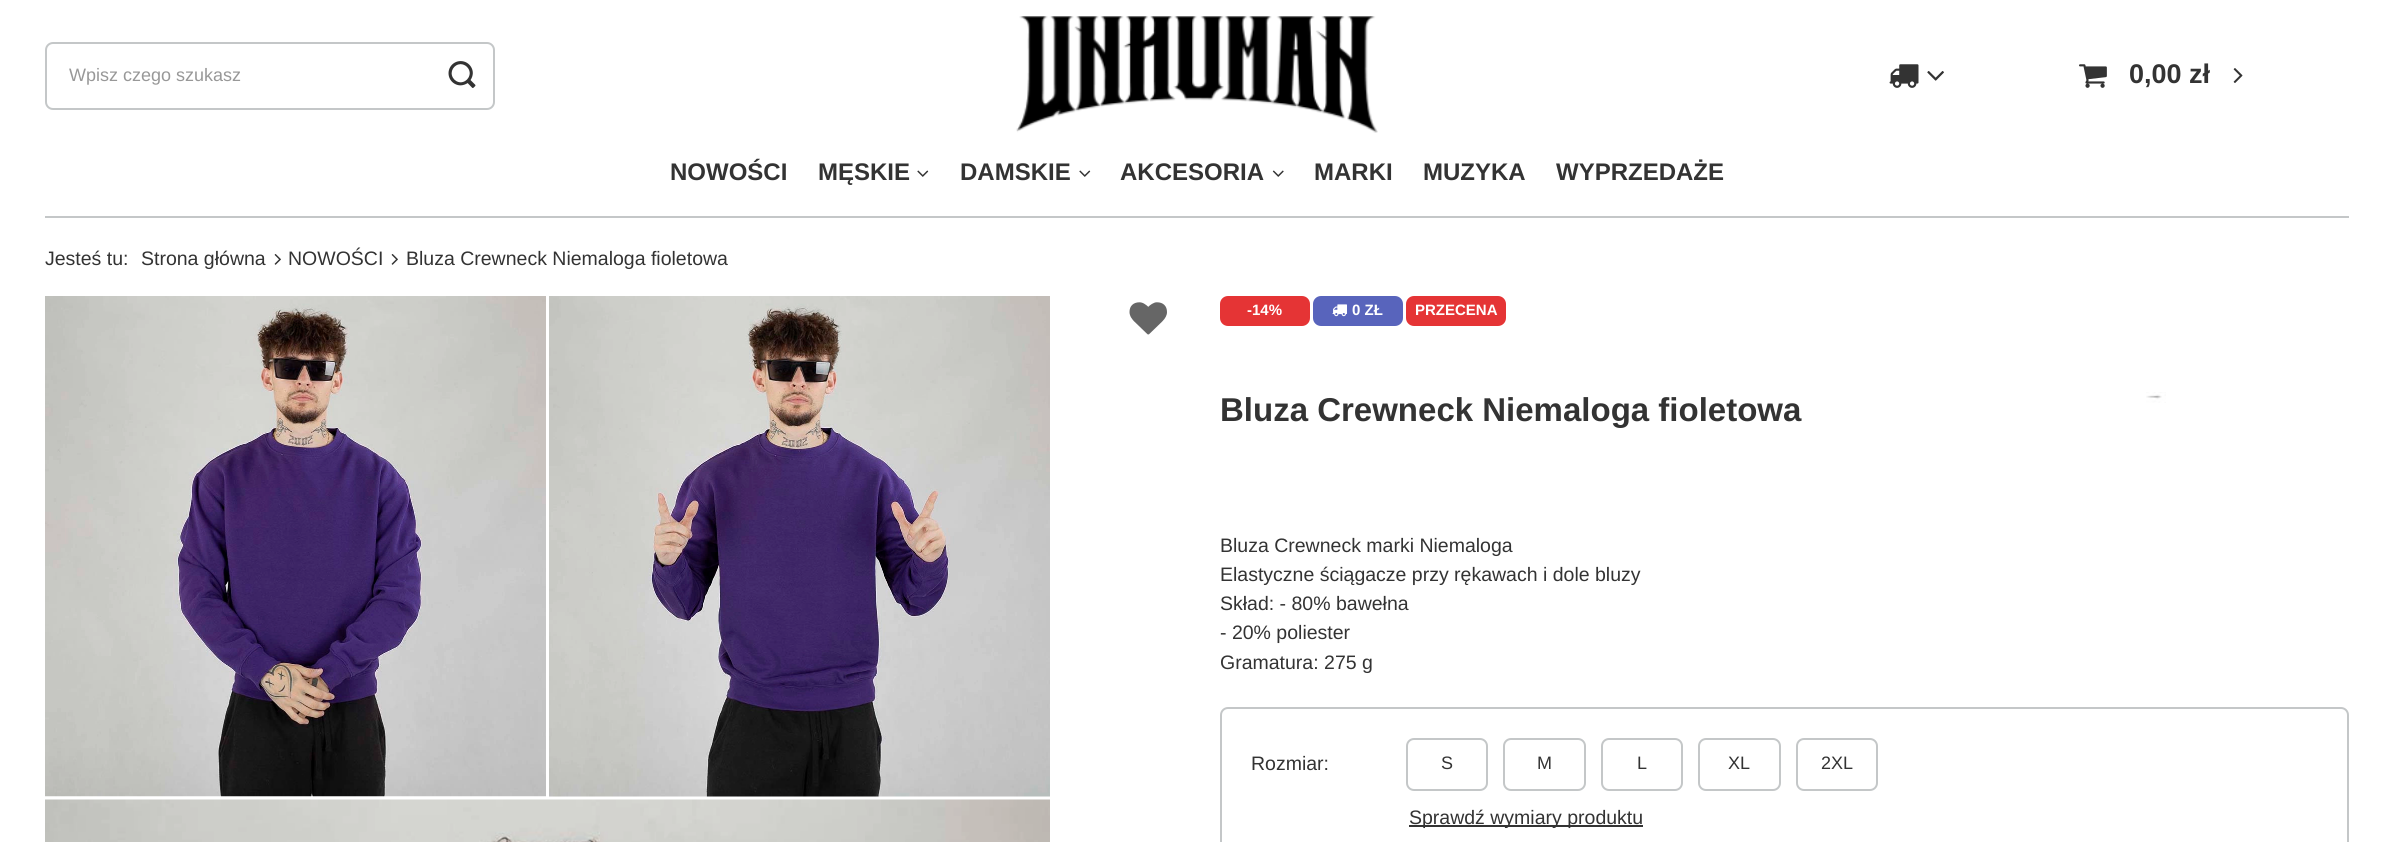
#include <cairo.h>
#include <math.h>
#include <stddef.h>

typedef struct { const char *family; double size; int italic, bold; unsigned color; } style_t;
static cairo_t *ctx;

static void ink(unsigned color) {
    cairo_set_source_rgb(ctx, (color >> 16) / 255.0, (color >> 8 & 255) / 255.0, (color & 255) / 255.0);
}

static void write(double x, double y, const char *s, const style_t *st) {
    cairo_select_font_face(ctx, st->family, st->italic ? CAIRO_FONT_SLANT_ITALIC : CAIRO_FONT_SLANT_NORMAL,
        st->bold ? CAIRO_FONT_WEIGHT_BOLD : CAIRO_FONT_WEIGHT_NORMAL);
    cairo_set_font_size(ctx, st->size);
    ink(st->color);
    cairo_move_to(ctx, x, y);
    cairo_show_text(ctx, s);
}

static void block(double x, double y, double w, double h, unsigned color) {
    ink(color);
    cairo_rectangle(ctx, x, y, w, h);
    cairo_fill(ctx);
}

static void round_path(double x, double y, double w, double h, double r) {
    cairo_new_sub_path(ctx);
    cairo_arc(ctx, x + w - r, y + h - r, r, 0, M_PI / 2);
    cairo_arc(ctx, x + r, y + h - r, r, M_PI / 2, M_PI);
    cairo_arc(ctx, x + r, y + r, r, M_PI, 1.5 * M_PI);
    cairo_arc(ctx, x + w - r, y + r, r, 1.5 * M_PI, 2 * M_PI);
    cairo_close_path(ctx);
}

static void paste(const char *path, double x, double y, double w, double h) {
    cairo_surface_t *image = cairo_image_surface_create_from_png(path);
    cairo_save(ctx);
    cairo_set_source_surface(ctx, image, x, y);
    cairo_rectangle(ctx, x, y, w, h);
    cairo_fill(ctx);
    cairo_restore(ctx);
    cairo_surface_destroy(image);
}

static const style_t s1 = {"Liberation Sans", 18, 0, 0, 0x989898};
static const style_t s2 = {"Liberation Sans", 27, 0, 1, 0x333333};
static const style_t s3 = {"Liberation Sans", 24, 0, 1, 0x333333};
static const style_t s4 = {"Liberation Sans", 19.5, 0, 0, 0x333333};
static const style_t s5 = {"Liberation Sans", 15, 0, 1, 0xffffff};
static const style_t s6 = {"Liberation Sans", 33, 0, 1, 0x333333};
static const style_t s7 = {"Liberation Sans", 18, 0, 0, 0x333333};

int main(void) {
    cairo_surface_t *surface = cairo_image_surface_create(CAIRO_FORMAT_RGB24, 2394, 842);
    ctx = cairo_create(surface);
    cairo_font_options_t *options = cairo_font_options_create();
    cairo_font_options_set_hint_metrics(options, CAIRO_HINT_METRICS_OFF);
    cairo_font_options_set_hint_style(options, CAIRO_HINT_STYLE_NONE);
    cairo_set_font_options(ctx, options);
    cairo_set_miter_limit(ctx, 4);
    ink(0xffffff);
    cairo_paint(ctx);
    round_path(46, 43, 448, 66, 7);
    ink(0xc4c7c8);
    cairo_stroke(ctx);
    write(69, 81, "Wpisz czego szukasz", &s1);
    paste("pic1.png", 448, 61, 28, 27);
    paste("pic2.png", 1016, 16, 362, 117);
    paste("pic3.png", 1889, 64, 30, 24);
    paste("pic4.png", 1927, 71, 17, 10);
    paste("pic5.png", 2079, 64, 28, 24);
    write(2129, 83, "0,00 zł", &s2);
    paste("pic6.png", 2233, 68, 10, 15);
    block(45, 216, 2304, 2, 0xc4c7c8);
    write(670, 180, "NOWOŚCI", &s3);
    write(818, 180, "MĘSKIE", &s3);
    paste("pic7.png", 917, 170, 12, 7);
    write(960, 180, "DAMSKIE", &s3);
    paste("pic7.png", 1079, 170, 12, 7);
    write(1120, 180, "AKCESORIA", &s3);
    paste("pic8.png", 1272, 170, 12, 7);
    write(1314, 180, "MARKI", &s3);
    write(1423, 180, "MUZYKA", &s3);
    write(1556, 180, "WYPRZEDAŻE", &s3);
    write(45, 265, "Jesteś tu:", &s4);
    write(141, 265, "Strona główna", &s4);
    paste("pic9.png", 274, 254, 7, 11);
    write(288, 265, "NOWOŚCI", &s4);
    paste("pic9.png", 391, 254, 7, 11);
    write(406, 265, "Bluza Crewneck Niemaloga fioletowa", &s4);
    paste("pic10.png", 45, 296, 501, 501);
    paste("pic11.png", 549, 296, 501, 501);
    paste("pic12.png", 45, 799, 1005, 43);
    paste("pic13.png", 1129, 302, 38, 33);
    ink(0xe53435);
    round_path(1220, 296, 90, 30, 8);
    cairo_fill(ctx);
    write(1247, 315, "-14%", &s5);
    ink(0x5864bc);
    round_path(1313, 296, 90, 30, 8);
    cairo_fill(ctx);
    paste("pic14.png", 1332, 304, 15, 13);
    write(1352, 315, "0 ZŁ", &s5);
    ink(0xe53435);
    round_path(1406, 296, 100, 30, 8);
    cairo_fill(ctx);
    write(1415, 315, "PRZECENA", &s5);
    write(1220, 421, "Bluza Crewneck Niemaloga fioletowa", &s6);
    paste("pic15.png", 2146, 392, 20, 11);
    write(1220, 552, "Bluza Crewneck marki Niemaloga", &s4);
    write(1220, 581, "Elastyczne ściągacze przy rękawach i dole bluzy", &s4);
    write(1220, 610, "Skład: - 80% bawełna", &s4);
    write(1220, 639, "- 20% poliester", &s4);
    write(1220, 669, "Gramatura: 275 g", &s4);
    round_path(1221, 708, 1127, 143, 7);
    ink(0xc4c7c8);
    cairo_stroke(ctx);
    write(1251, 770, "Rozmiar:", &s4);
    round_path(1407, 739, 80, 51, 7);
    ink(0xc4c7c8);
    cairo_stroke(ctx);
    write(1441, 769, "S", &s7);
    round_path(1504, 739, 81, 51, 7);
    ink(0xc4c7c8);
    cairo_stroke(ctx);
    write(1537, 769, "M", &s7);
    round_path(1602, 739, 80, 51, 7);
    ink(0xc4c7c8);
    cairo_stroke(ctx);
    write(1637, 769, "L", &s7);
    round_path(1699, 739, 81, 51, 7);
    ink(0xc4c7c8);
    cairo_stroke(ctx);
    write(1728, 769, "XL", &s7);
    round_path(1797, 739, 80, 51, 7);
    ink(0xc4c7c8);
    cairo_stroke(ctx);
    write(1821, 769, "2XL", &s7);
    block(1409, 825, 234, 2, 0x333333);
    write(1409, 824, "Sprawdź wymiary produktu", &s4);
    cairo_surface_write_to_png(surface, "screenshot.png");
    cairo_font_options_destroy(options);
    cairo_destroy(ctx);
    cairo_surface_destroy(surface);
    return 0;
}
